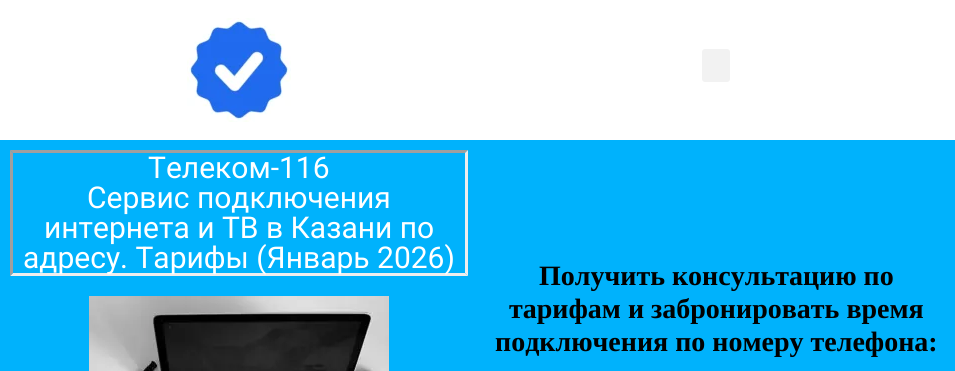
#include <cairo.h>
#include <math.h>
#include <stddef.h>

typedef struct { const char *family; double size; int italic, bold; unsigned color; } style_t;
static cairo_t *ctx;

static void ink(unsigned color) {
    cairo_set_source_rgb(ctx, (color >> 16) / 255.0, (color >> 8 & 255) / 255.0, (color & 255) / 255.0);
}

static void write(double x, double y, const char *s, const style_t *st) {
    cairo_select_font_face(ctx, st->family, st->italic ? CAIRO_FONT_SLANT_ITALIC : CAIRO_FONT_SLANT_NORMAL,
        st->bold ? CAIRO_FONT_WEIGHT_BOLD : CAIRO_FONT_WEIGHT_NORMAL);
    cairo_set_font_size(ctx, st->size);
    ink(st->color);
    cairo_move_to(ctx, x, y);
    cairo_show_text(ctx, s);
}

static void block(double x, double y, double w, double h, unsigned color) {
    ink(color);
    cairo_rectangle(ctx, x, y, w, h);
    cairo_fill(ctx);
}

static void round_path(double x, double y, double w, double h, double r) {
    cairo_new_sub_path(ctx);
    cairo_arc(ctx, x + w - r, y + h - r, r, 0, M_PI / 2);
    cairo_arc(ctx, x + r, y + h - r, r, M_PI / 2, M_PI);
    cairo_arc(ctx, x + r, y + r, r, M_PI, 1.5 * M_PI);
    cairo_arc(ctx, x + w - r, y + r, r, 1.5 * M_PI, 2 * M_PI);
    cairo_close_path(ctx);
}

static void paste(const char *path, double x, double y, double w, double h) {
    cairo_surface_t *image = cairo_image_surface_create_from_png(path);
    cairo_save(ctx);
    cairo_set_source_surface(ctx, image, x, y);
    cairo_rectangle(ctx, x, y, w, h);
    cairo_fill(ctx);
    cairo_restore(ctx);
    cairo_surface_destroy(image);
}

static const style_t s1 = {"Roboto", 30, 0, 0, 0xffffff};
static const style_t s2 = {"Liberation Serif", 28, 0, 1, 0x000000};

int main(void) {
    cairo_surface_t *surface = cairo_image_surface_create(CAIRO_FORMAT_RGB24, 955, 371);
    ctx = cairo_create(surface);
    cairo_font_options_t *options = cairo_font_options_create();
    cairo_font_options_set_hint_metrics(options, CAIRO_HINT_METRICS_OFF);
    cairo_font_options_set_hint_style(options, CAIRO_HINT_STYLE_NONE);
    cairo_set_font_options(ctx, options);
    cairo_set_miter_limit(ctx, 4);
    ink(0xffffff);
    cairo_paint(ctx);
    paste("pic1.png", 187, 18, 104, 104);
    ink(0xf2f2f2);
    round_path(702, 49, 28, 33, 3);
    cairo_fill(ctx);
    block(0, 140, 955, 231, 0x00b2fc);
    ink(0x9f9f9f);
    cairo_new_path(ctx);
    cairo_move_to(ctx, 10, 150);
    cairo_line_to(ctx, 468, 150);
    cairo_line_to(ctx, 465, 153);
    cairo_line_to(ctx, 13, 153);
    cairo_close_path(ctx);
    cairo_fill(ctx);
    ink(0xeeeeee);
    cairo_new_path(ctx);
    cairo_move_to(ctx, 468, 150);
    cairo_line_to(ctx, 468, 276);
    cairo_line_to(ctx, 465, 273);
    cairo_line_to(ctx, 465, 153);
    cairo_close_path(ctx);
    cairo_fill(ctx);
    cairo_new_path(ctx);
    cairo_move_to(ctx, 468, 276);
    cairo_line_to(ctx, 10, 276);
    cairo_line_to(ctx, 13, 273);
    cairo_line_to(ctx, 465, 273);
    cairo_close_path(ctx);
    cairo_fill(ctx);
    ink(0x9f9f9f);
    cairo_new_path(ctx);
    cairo_move_to(ctx, 10, 276);
    cairo_line_to(ctx, 10, 150);
    cairo_line_to(ctx, 13, 153);
    cairo_line_to(ctx, 13, 273);
    cairo_close_path(ctx);
    cairo_fill(ctx);
    write(148, 178, "Телеком-116", &s1);
    write(87, 208, "Сервис подключения", &s1);
    write(44, 238, "интернета и ТВ в Казани по", &s1);
    write(23, 268, "адресу. Тарифы (Январь 2026)", &s1);
    paste("pic2.png", 89, 296, 300, 75);
    write(539, 285, "Получить консультацию по", &s2);
    write(509, 318, "тарифам и забронировать время", &s2);
    write(495, 351, "подключения по номеру телефона:", &s2);
    cairo_surface_write_to_png(surface, "screenshot.png");
    cairo_font_options_destroy(options);
    cairo_destroy(ctx);
    cairo_surface_destroy(surface);
    return 0;
}
